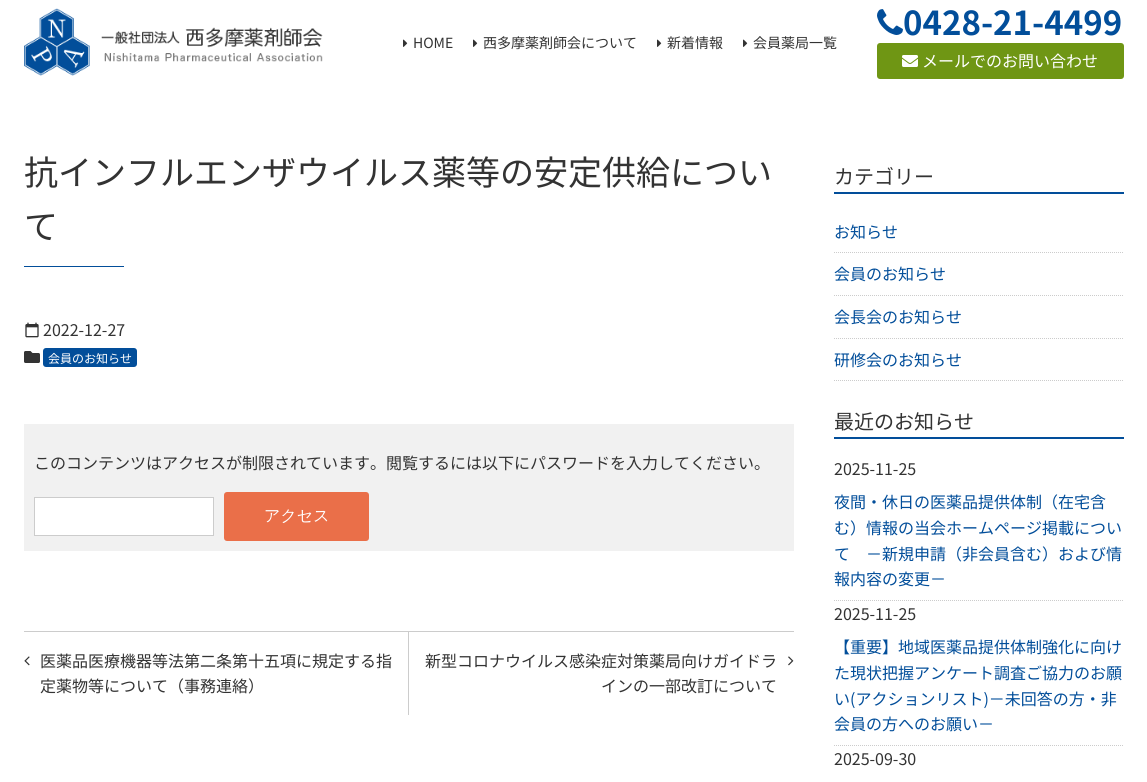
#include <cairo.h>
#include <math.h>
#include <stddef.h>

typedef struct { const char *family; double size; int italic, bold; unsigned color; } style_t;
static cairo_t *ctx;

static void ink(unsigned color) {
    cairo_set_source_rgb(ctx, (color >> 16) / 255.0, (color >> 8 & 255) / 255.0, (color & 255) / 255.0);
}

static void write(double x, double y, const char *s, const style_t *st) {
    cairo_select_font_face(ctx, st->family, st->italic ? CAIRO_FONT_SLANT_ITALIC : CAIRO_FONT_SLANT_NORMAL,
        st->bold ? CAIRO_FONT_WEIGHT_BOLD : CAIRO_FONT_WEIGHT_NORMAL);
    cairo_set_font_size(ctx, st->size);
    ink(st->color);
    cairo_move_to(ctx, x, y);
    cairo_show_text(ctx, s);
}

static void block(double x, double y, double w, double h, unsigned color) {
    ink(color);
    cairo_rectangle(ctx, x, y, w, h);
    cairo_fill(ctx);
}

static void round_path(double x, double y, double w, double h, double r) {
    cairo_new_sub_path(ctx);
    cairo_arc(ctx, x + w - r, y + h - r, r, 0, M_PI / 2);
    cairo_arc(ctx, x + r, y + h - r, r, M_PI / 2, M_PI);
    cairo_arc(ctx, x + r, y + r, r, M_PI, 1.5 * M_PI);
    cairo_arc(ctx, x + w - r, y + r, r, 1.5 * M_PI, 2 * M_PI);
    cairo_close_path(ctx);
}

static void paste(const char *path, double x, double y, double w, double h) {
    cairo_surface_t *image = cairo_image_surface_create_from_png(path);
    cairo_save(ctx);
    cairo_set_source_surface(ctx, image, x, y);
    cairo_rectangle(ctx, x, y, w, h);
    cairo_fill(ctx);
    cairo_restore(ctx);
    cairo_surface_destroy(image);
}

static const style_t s1 = {"Noto Sans JP", 14, 0, 0, 0x333333};
static const style_t s2 = {"Noto Sans JP", 33, 0, 1, 0x024e9a};
static const style_t s3 = {"Noto Sans JP", 16, 0, 0, 0xffffff};
static const style_t s4 = {"Noto Sans JP", 34, 0, 0, 0x333333};
static const style_t s5 = {"Noto Sans JP", 16, 0, 0, 0x333333};
static const style_t s6 = {"Noto Sans JP", 12, 0, 0, 0xffffff};
static const style_t s7 = {"WenQuanYi Zen Hei Medium", 16, 0, 0, 0xffffff};
static const style_t s8 = {"Noto Sans JP", 20, 0, 0, 0x333333};
static const style_t s9 = {"Noto Sans JP", 16, 0, 0, 0x024e9a};

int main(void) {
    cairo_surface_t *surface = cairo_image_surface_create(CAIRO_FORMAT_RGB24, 1147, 782);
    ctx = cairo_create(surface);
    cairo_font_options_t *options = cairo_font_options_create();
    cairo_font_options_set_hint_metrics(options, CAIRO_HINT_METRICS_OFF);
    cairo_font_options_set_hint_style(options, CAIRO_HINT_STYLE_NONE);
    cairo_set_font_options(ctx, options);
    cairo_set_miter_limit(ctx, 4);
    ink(0xffffff);
    cairo_paint(ctx);
    paste("pic1.png", 24, 8, 299, 68);
    paste("pic2.png", 403, 39, 5, 8);
    write(413, 48, "HOME", &s1);
    paste("pic2.png", 473, 39, 5, 8);
    write(483, 48, "西多摩薬剤師会について", &s1);
    paste("pic2.png", 657, 39, 5, 8);
    write(667, 48, "新着情報", &s1);
    paste("pic2.png", 743, 39, 5, 8);
    write(753, 48, "会員薬局一覧", &s1);
    paste("pic3.png", 877, 9, 26, 26);
    write(903, 35, "0428-21-4499", &s2);
    ink(0x6f9614);
    round_path(877, 43, 247, 36, 3);
    cairo_fill(ctx);
    paste("pic4.png", 902, 55, 16, 12);
    write(922, 67, "メールでのお問い合わせ", &s3);
    write(24, 185, "抗インフルエンザウイルス薬等の安定供給につい", &s4);
    write(24, 239, "て", &s4);
    block(24, 266, 100, 1, 0x024e9a);
    paste("pic5.png", 25, 322, 14, 16);
    write(43, 336, "2022-12-27", &s5);
    paste("pic6.png", 24, 351, 16, 12);
    ink(0x024e9a);
    round_path(43, 348, 94, 19, 3);
    cairo_fill(ctx);
    write(48, 363, "会員のお知らせ", &s6);
    block(24, 424, 770, 127, 0xf1f1f1);
    write(34, 469, "このコンテンツはアクセスが制限されています。閲覧するには以下にパスワードを入力してください。", &s5);
    ink(0xffffff);
    cairo_rectangle(ctx, 34.5, 497.5, 179, 38);
    cairo_fill_preserve(ctx);
    ink(0xcccccc);
    cairo_set_line_width(ctx, 1);
    cairo_stroke(ctx);
    ink(0xea6f49);
    round_path(224, 492, 145, 49, 3);
    cairo_fill(ctx);
    write(264, 521, "アクセス", &s7);
    block(24, 631, 770, 1, 0xcccccc);
    paste("pic7.png", 24, 656, 6, 10);
    write(40, 667, "医薬品医療機器等法第二条第十五項に規定する指", &s5);
    write(40, 692, "定薬物等について（事務連絡）", &s5);
    block(408, 632, 1, 83, 0xcccccc);
    write(425, 667, "新型コロナウイルス感染症対策薬局向けガイドラ", &s5);
    paste("pic8.png", 788, 656, 6, 10);
    write(601, 692, "インの一部改訂について", &s5);
    block(834, 192, 290, 2, 0x024e9a);
    write(834, 184, "カテゴリー", &s8);
    cairo_new_path(ctx);
    cairo_move_to(ctx, 834, 252.5);
    cairo_line_to(ctx, 1124, 252.5);
    ink(0xcccccc);
    cairo_set_dash(ctx, (double[]){1, 1}, 2, 0);
    cairo_stroke(ctx);
    write(834, 238, "お知らせ", &s9);
    cairo_new_path(ctx);
    cairo_move_to(ctx, 834, 295.5);
    cairo_line_to(ctx, 1124, 295.5);
    ink(0xcccccc);
    cairo_stroke(ctx);
    write(834, 280, "会員のお知らせ", &s9);
    cairo_new_path(ctx);
    cairo_move_to(ctx, 834, 338.5);
    cairo_line_to(ctx, 1124, 338.5);
    ink(0xcccccc);
    cairo_stroke(ctx);
    write(834, 323, "会長会のお知らせ", &s9);
    cairo_new_path(ctx);
    cairo_move_to(ctx, 834, 380.5);
    cairo_line_to(ctx, 1124, 380.5);
    ink(0xcccccc);
    cairo_stroke(ctx);
    write(834, 366, "研修会のお知らせ", &s9);
    block(834, 437, 290, 2, 0x024e9a);
    write(834, 429, "最近のお知らせ", &s8);
    cairo_new_path(ctx);
    cairo_move_to(ctx, 834, 600.5);
    cairo_line_to(ctx, 1124, 600.5);
    ink(0xcccccc);
    cairo_stroke(ctx);
    write(834, 475, "2025-11-25", &s5);
    write(834, 508, "夜間・休日の医薬品提供体制（在宅含", &s9);
    write(834, 534, "む）情報の当会ホームページ掲載につい", &s9);
    write(834, 560, "て　－新規申請（非会員含む）および情", &s9);
    write(834, 585, "報内容の変更－", &s9);
    cairo_new_path(ctx);
    cairo_move_to(ctx, 834, 745.5);
    cairo_line_to(ctx, 1124, 745.5);
    ink(0xcccccc);
    cairo_stroke(ctx);
    write(834, 620, "2025-11-25", &s5);
    write(834, 653, "【重要】地域医薬品提供体制強化に向け", &s9);
    write(834, 679, "た現状把握アンケート調査ご協力のお願", &s9);
    write(834, 705, "い(アクションリスト)－未回答の方・非", &s9);
    write(834, 730, "会員の方へのお願い－", &s9);
    write(834, 765, "2025-09-30", &s5);
    cairo_surface_write_to_png(surface, "screenshot.png");
    cairo_font_options_destroy(options);
    cairo_destroy(ctx);
    cairo_surface_destroy(surface);
    return 0;
}
